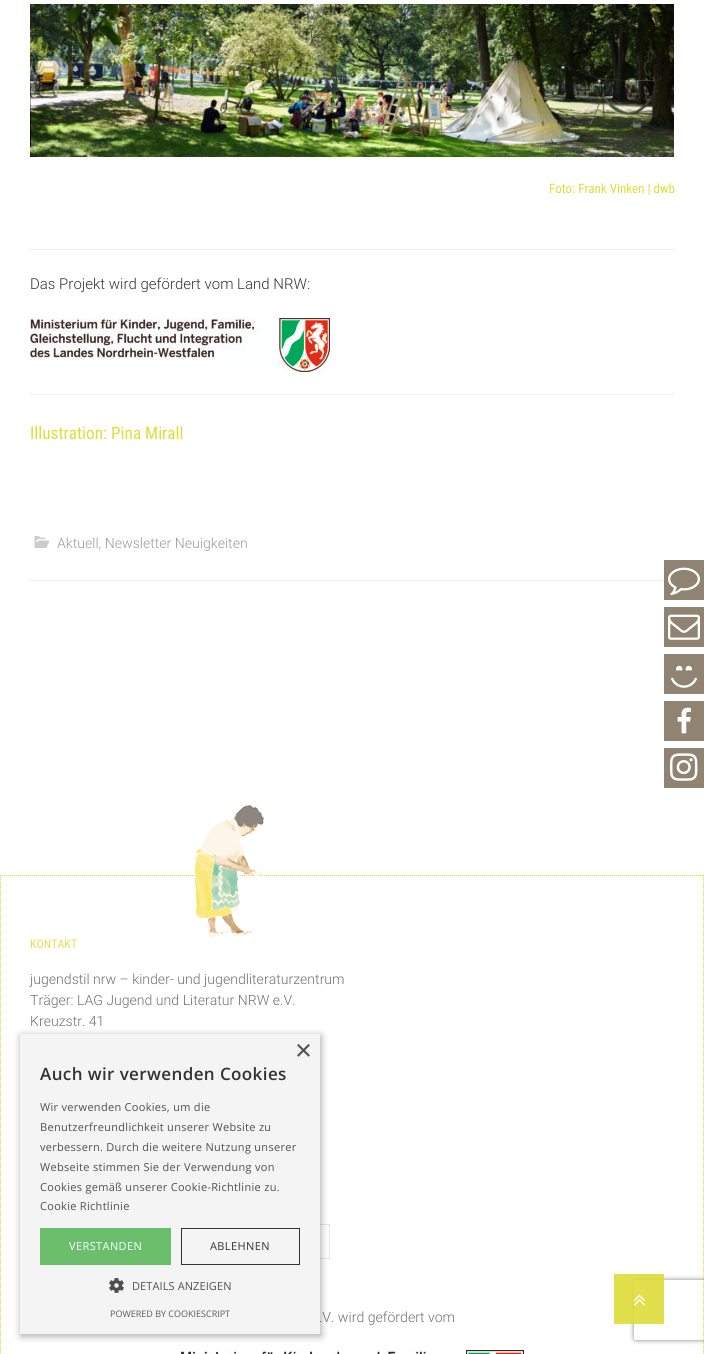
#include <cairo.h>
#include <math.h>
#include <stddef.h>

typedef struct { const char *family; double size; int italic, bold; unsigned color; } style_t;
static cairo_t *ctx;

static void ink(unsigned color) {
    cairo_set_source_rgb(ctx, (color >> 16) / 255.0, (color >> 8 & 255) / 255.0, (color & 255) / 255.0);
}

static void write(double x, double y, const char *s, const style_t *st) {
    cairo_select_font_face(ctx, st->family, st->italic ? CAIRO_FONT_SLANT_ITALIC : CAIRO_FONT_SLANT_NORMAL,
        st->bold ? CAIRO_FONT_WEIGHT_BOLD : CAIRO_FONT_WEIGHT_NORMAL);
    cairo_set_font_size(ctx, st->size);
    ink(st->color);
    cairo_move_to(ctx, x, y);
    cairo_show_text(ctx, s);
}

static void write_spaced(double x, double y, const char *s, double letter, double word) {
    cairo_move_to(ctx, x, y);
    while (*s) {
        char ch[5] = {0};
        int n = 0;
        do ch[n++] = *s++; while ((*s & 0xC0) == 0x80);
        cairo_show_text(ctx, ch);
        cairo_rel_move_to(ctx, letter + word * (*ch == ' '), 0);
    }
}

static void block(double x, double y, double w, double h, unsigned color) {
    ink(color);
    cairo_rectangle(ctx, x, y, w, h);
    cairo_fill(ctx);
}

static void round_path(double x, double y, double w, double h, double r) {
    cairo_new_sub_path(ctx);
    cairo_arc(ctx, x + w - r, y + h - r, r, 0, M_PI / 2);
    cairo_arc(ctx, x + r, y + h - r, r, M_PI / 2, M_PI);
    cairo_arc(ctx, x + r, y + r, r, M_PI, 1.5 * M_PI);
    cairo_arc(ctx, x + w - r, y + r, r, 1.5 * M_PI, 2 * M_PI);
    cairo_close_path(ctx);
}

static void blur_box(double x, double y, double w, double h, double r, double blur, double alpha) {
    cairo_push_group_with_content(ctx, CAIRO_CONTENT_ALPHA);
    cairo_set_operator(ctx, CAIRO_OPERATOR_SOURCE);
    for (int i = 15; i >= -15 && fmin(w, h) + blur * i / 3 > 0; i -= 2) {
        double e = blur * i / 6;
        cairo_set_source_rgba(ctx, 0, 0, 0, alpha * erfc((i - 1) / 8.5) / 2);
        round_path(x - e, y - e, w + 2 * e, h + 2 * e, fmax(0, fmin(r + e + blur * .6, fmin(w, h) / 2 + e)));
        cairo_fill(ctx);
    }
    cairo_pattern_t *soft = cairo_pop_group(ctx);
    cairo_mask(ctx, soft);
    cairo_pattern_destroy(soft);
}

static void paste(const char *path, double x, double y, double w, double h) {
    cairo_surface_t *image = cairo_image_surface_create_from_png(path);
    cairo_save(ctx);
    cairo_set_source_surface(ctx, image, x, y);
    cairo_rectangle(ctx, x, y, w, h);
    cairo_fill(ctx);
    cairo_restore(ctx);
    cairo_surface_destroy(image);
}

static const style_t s1 = {"Roboto Condensed", 13, 0, 0, 0xdedd39};
static const style_t s2 = {"Roboto Light", 15, 0, 0, 0x333333};
static const style_t s3 = {"Roboto Condensed", 17.25, 0, 0, 0xdedd39};
static const style_t s4 = {"Roboto Light", 14.1, 0, 0, 0x999999};
static const style_t s5 = {"Roboto Condensed", 12, 0, 0, 0xe2e154};
static const style_t s6 = {"Roboto Light", 14.1, 0, 0, 0x707070};
static const style_t s7 = {"Liberation Sans", 29, 0, 0, 0x505050};
static const style_t s8 = {"Open Sans", 9, 0, 0, 0x5a5a5a};

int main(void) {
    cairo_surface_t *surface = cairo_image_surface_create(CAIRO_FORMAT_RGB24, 704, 1354);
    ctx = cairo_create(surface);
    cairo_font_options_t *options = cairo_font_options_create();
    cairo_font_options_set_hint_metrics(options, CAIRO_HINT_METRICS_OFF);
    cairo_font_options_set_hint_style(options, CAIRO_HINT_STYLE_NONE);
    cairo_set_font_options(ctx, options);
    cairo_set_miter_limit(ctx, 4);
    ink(0xffffff);
    cairo_paint(ctx);
    block(30, 580, 634, 1, 0xeeeeee);
    paste("pic1.png", 30, 4, 644, 153);
    write(549, 193, "Foto: Frank Vinken | dwb", &s1);
    block(30, 249, 644, 1, 0xeeeeee);
    write(30, 289, "Das Projekt wird gefördert vom Land NRW:", &s2);
    paste("pic2.png", 30, 318, 300, 54);
    block(30, 394, 644, 1, 0xeeeeee);
    write(30, 439, "Illustration: Pina Mirall", &s3);
    paste("pic3.png", 34, 536, 16, 12);
    write(57, 548, "Aktuell, Newsletter Neuigkeiten", &s4);
    cairo_new_path(ctx);
    cairo_move_to(ctx, 0, 875.5);
    cairo_line_to(ctx, 704, 875.5);
    ink(0xdfde41);
    cairo_set_line_width(ctx, 1);
    cairo_set_dash(ctx, (double[]){1, 1}, 2, 0);
    cairo_stroke(ctx);
    paste("pic4.png", 190, 805, 74, 132);
    cairo_new_path(ctx);
    cairo_move_to(ctx, 703.5, 875);
    cairo_line_to(ctx, 703.5, 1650);
    cairo_stroke(ctx);
    cairo_new_path(ctx);
    cairo_move_to(ctx, 0.5, 875);
    cairo_line_to(ctx, 0.5, 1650);
    cairo_stroke(ctx);
    write(30, 948, "KONTAKT", &s5);
    write(30, 984, "jugendstil nrw – kinder- und jugendliteraturzentrum", &s6);
    write(30, 1005, "Träger: LAG Jugend und Literatur NRW e.V.", &s6);
    write(30, 1026, "Kreuzstr. 41", &s6);
    cairo_rectangle(ctx, 30.5, 1224.5, 299, 34);
    ink(0xe6e6e6);
    cairo_set_dash(ctx, NULL, 0, 0);
    cairo_stroke(ctx);
    write(319, 1322, ".V. wird gefördert vom", &s6);
    paste("pic5.png", 180, 1350, 344, 4);
    block(664, 560, 40, 40, 0x908371);
    paste("pic6.png", 668, 567, 32, 28);
    block(664, 607, 40, 40, 0x908371);
    paste("pic7.png", 668, 614, 32, 26);
    block(664, 654, 40, 40, 0x908371);
    paste("pic8.png", 670, 665, 28, 23);
    block(664, 701, 40, 40, 0x908371);
    paste("pic9.png", 677, 707, 14, 27);
    block(664, 748, 40, 40, 0x908371);
    paste("pic10.png", 670, 753, 28, 28);
    ink(0x000000);
    blur_box(21, 1036, 300, 300, 0, 4, 0.35);
    block(20, 1034, 300, 300, 0xf4f4f4);
    write(295, 1060, "×", &s7);
    cairo_select_font_face(ctx, "Open Sans SemiBold", CAIRO_FONT_SLANT_NORMAL, CAIRO_FONT_WEIGHT_NORMAL);
    cairo_set_font_size(ctx, 17);
    ink(0x333333);
    write_spaced(40, 1080, "Auch wir verwenden Cookies", 0.4, 0);
    cairo_select_font_face(ctx, "Open Sans", CAIRO_FONT_SLANT_NORMAL, CAIRO_FONT_WEIGHT_NORMAL);
    cairo_set_font_size(ctx, 11);
    ink(0x505050);
    write_spaced(40, 1111, "Wir verwenden Cookies, um die", 0.3, 0);
    write_spaced(40, 1131, "Benutzerfreundlichkeit unserer Website zu", 0.3, 0);
    write_spaced(40, 1151, "verbessern. Durch die weitere Nutzung unserer", 0.3, 0);
    write_spaced(40, 1171, "Webseite stimmen Sie der Verwendung von", 0.3, 0);
    write_spaced(40, 1191, "Cookies gemäß unserer Cookie-Richtlinie zu.", 0.3, 0);
    write_spaced(40, 1210, "Cookie Richtlinie", 0.3, 0);
    block(40, 1228, 131, 37, 0x6bbe6b);
    ink(0xffffff);
    write_spaced(69, 1250, "VERSTANDEN", 0.4, 0);
    cairo_rectangle(ctx, 181.5, 1228.5, 118, 36);
    ink(0x333333);
    cairo_stroke(ctx);
    write_spaced(210, 1250, "ABLEHNEN", 0.4, 0);
    paste("pic11.png", 109, 1278, 15, 15);
    ink(0x505050);
    write_spaced(132, 1290, "DETAILS ANZEIGEN", 0.1, 0);
    write(110, 1317, "POWERED BY COOKIESCRIPT", &s8);
    cairo_save(ctx);
    cairo_set_fill_rule(ctx, CAIRO_FILL_RULE_EVEN_ODD);
    cairo_new_path(ctx);
    cairo_move_to(ctx, 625, 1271);
    cairo_line_to(ctx, 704, 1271);
    cairo_line_to(ctx, 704, 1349);
    cairo_line_to(ctx, 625, 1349);
    cairo_close_path(ctx);
    cairo_move_to(ctx, 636, 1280);
    cairo_line_to(ctx, 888, 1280);
    cairo_curve_to(ctx, 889, 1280, 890, 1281, 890, 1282);
    cairo_line_to(ctx, 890, 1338);
    cairo_curve_to(ctx, 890, 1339, 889, 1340, 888, 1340);
    cairo_line_to(ctx, 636, 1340);
    cairo_curve_to(ctx, 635, 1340, 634, 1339, 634, 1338);
    cairo_line_to(ctx, 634, 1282);
    cairo_curve_to(ctx, 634, 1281, 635, 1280, 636, 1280);
    cairo_close_path(ctx);
    cairo_clip(ctx);
    ink(0x808080);
    blur_box(634, 1280, 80, 60, 2, 2.5, 1);
    cairo_restore(ctx);
    cairo_set_source_rgba(ctx, 0.871, 0.867, 0.224, 0.9);
    cairo_rectangle(ctx, 614, 1274, 50, 50);
    cairo_fill(ctx);
    paste("pic12.png", 633, 1294, 12, 12);
    cairo_surface_write_to_png(surface, "screenshot.png");
    cairo_font_options_destroy(options);
    cairo_destroy(ctx);
    cairo_surface_destroy(surface);
    return 0;
}
